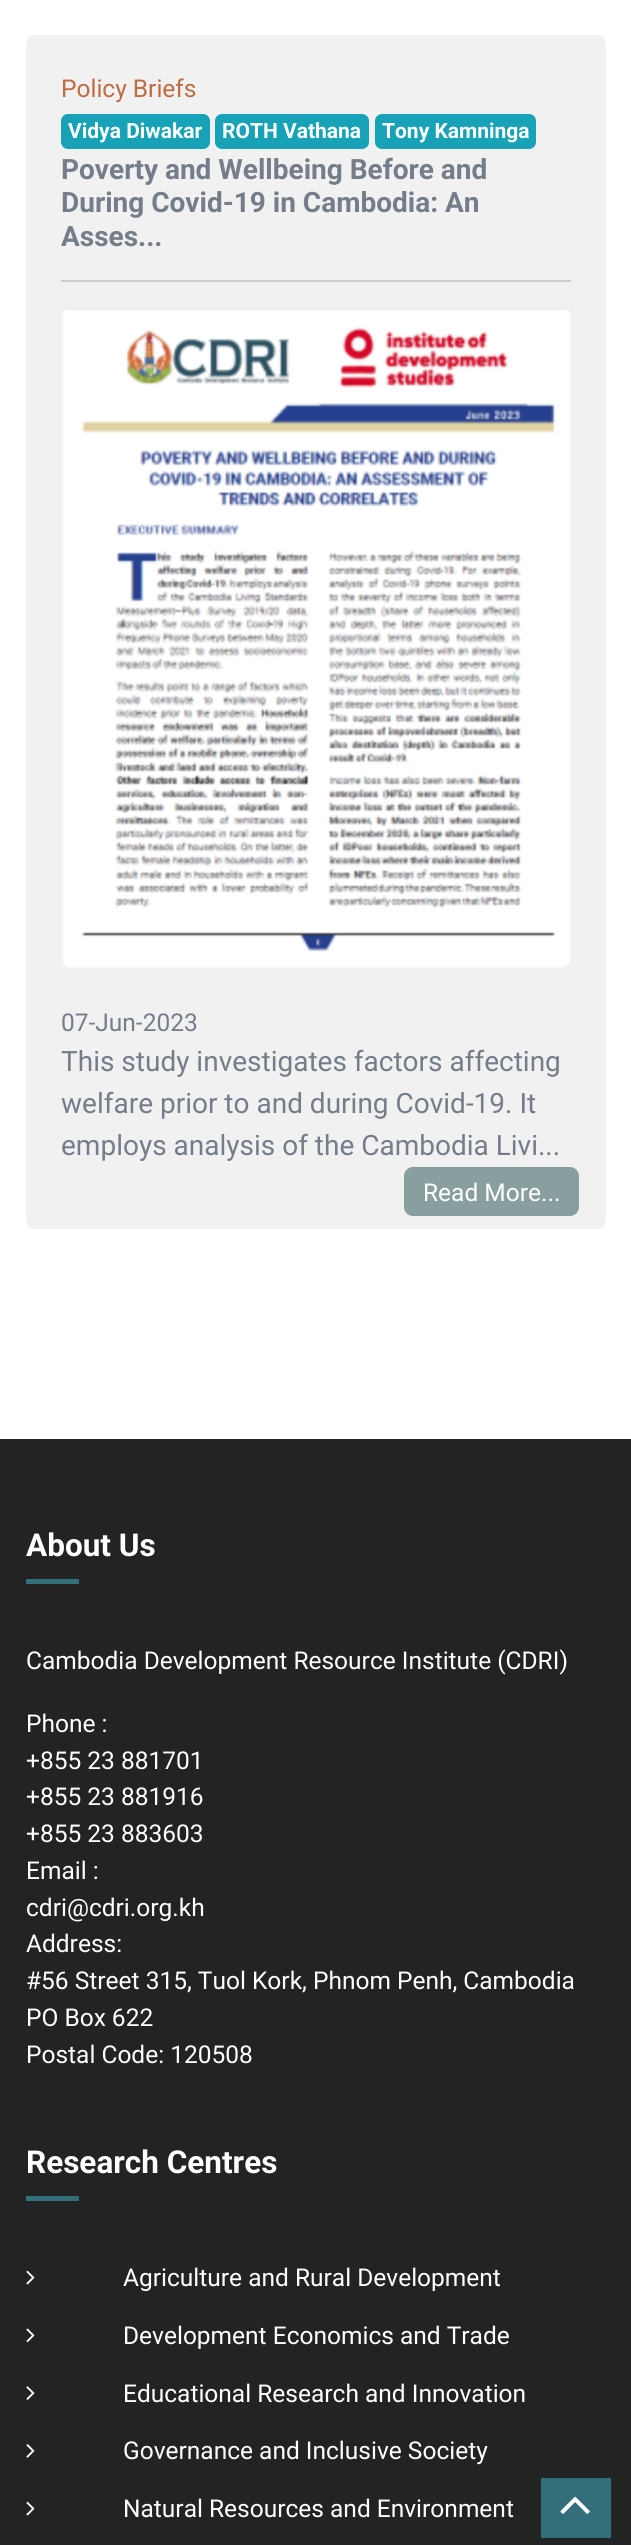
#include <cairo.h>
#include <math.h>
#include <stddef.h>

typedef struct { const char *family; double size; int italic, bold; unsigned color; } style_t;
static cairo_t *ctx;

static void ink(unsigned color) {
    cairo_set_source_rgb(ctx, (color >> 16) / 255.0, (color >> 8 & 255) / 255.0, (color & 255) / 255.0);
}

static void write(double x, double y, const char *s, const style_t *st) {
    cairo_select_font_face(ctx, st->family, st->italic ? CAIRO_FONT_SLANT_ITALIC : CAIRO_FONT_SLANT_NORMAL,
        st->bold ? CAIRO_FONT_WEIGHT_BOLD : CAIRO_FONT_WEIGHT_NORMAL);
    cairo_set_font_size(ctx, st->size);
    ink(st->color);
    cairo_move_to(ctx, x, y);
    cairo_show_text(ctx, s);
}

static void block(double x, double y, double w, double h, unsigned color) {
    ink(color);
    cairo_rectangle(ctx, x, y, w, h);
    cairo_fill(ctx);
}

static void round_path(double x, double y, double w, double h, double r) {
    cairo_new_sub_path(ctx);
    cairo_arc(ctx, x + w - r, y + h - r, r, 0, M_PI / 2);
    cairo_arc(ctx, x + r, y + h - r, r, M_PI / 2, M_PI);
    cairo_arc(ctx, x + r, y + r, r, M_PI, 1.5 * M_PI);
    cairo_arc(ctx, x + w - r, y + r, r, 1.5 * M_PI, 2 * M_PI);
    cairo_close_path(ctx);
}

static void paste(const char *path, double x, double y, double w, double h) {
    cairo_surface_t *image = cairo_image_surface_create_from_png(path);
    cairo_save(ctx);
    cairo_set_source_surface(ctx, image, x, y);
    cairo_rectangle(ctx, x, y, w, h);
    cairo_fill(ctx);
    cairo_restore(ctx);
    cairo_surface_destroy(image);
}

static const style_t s1 = {"Roboto", 24.5, 0, 0, 0xbe6b40};
static const style_t s2 = {"Roboto", 21, 0, 1, 0xffffff};
static const style_t s3 = {"Roboto", 28, 0, 1, 0x747d89};
static const style_t s4 = {"Roboto", 24.5, 0, 0, 0x747d89};
static const style_t s5 = {"Roboto", 28, 0, 0, 0x747d89};
static const style_t s6 = {"Roboto", 24.5, 0, 0, 0xffffff};
static const style_t s7 = {"Roboto", 31.5, 0, 1, 0xffffff};

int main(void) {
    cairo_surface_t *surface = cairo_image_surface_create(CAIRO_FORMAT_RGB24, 631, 2545);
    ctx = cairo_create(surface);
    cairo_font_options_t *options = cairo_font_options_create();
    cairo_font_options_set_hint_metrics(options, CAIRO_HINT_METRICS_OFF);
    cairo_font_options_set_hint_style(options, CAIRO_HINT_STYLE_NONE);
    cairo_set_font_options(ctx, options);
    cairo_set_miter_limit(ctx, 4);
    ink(0xffffff);
    cairo_paint(ctx);
    ink(0xf1f1f1);
    round_path(26, 35, 580, 1194, 9);
    cairo_fill(ctx);
    write(61, 97, "Policy Briefs", &s1);
    ink(0x17a2b8);
    round_path(61, 114, 149, 35, 7);
    cairo_fill(ctx);
    write(68, 138, "Vidya Diwakar", &s2);
    ink(0x17a2b8);
    round_path(215, 114, 154, 35, 7);
    cairo_fill(ctx);
    write(222, 138, "ROTH Vathana", &s2);
    ink(0x17a2b8);
    round_path(375, 114, 161, 35, 7);
    cairo_fill(ctx);
    write(382, 138, "Tony Kamninga", &s2);
    write(61, 179, "Poverty and Wellbeing Before and", &s3);
    write(61, 212, "During Covid-19 in Cambodia: An", &s3);
    write(61, 246, "Asses...", &s3);
    block(61, 280, 510, 2, 0xcccccc);
    paste("pic1.png", 62, 308, 509, 660);
    write(61, 1031, "07-Jun-2023", &s4);
    write(61, 1071, "This study investigates factors affecting", &s5);
    write(61, 1113, "welfare prior to and during Covid-19. It", &s5);
    write(61, 1155, "employs analysis of the Cambodia Livi...", &s5);
    ink(0x899f9f);
    round_path(405, 1168, 173, 47, 8);
    cairo_fill_preserve(ctx);
    cairo_stroke(ctx);
    write(423, 1201, "Read More...", &s6);
    block(0, 1439, 631, 1106, 0x232323);
    write(26, 1556, "About Us", &s7);
    block(26, 1579, 53, 5, 0x336e7b);
    write(26, 1669, "Cambodia Development Resource Institute (CDRI)", &s6);
    write(26, 1732, "Phone :", &s6);
    write(26, 1769, "+855 23 881701", &s6);
    write(26, 1805, "+855 23 881916", &s6);
    write(26, 1842, "+855 23 883603", &s6);
    write(26, 1879, "Email :", &s6);
    write(26, 1916, "cdri@cdri.org.kh", &s6);
    write(26, 1952, "Address:", &s6);
    write(26, 1989, "#56 Street 315, Tuol Kork, Phnom Penh, Cambodia", &s6);
    write(26, 2026, "PO Box 622", &s6);
    write(26, 2063, "Postal Code: 120508", &s6);
    write(26, 2173, "Research Centres", &s7);
    block(26, 2196, 53, 5, 0x336e7b);
    paste("pic2.png", 26, 2270, 9, 15);
    ink(0x212529);
    cairo_arc(ctx, 99.5, 2278.5, 3.5, 0, 2 * M_PI);
    cairo_fill(ctx);
    write(123, 2286, "Agriculture and Rural Development", &s6);
    paste("pic3.png", 26, 2328, 9, 15);
    ink(0x212529);
    cairo_arc(ctx, 99.5, 2336.5, 3.5, 0, 2 * M_PI);
    cairo_fill(ctx);
    write(123, 2344, "Development Economics and Trade", &s6);
    paste("pic4.png", 26, 2386, 9, 14);
    ink(0x212529);
    cairo_arc(ctx, 99.5, 2394.5, 3.5, 0, 2 * M_PI);
    cairo_fill(ctx);
    write(123, 2402, "Educational Research and Innovation", &s6);
    paste("pic5.png", 26, 2444, 9, 14);
    ink(0x212529);
    cairo_arc(ctx, 99.5, 2451.5, 3.5, 0, 2 * M_PI);
    cairo_fill(ctx);
    write(123, 2459, "Governance and Inclusive Society", &s6);
    paste("pic2.png", 26, 2501, 9, 15);
    ink(0x212529);
    cairo_arc(ctx, 99.5, 2509.5, 3.5, 0, 2 * M_PI);
    cairo_fill(ctx);
    write(123, 2517, "Natural Resources and Environment", &s6);
    block(541, 2478, 70, 60, 0x336e7b);
    paste("pic6.png", 560, 2496, 30, 18);
    cairo_surface_write_to_png(surface, "screenshot.png");
    cairo_font_options_destroy(options);
    cairo_destroy(ctx);
    cairo_surface_destroy(surface);
    return 0;
}
